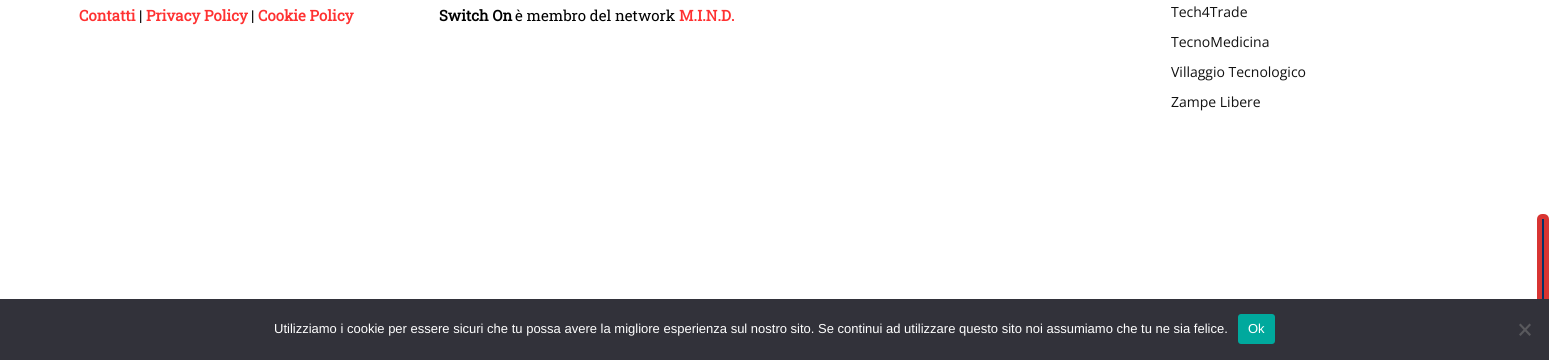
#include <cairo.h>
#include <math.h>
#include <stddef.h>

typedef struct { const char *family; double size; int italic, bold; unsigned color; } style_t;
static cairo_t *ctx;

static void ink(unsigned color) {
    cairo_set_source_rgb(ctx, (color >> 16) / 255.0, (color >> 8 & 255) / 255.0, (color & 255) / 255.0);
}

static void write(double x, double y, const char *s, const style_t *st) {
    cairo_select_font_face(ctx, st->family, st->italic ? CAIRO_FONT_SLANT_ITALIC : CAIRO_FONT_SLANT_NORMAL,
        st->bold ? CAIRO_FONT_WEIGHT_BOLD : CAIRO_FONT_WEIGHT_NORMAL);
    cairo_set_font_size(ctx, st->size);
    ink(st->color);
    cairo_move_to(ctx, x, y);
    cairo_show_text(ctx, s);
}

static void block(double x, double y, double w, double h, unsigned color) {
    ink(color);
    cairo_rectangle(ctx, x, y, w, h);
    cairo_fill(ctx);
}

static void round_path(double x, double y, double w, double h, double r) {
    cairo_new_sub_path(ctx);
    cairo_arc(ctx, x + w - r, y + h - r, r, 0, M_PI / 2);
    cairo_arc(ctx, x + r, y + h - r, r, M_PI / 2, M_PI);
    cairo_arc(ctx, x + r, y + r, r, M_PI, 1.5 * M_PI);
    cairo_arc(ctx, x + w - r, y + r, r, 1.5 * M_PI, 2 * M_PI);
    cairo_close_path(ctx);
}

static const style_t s1 = {"Roboto Slab", 15, 0, 1, 0xff3131};
static const style_t s2 = {"Roboto Slab", 15, 0, 0, 0x000000};
static const style_t s3 = {"Roboto Slab", 15, 0, 1, 0x000000};
static const style_t s4 = {"Open Sans", 14, 0, 0, 0x111111};
static const style_t s5 = {"Liberation Sans", 13, 0, 0, 0xffffff};

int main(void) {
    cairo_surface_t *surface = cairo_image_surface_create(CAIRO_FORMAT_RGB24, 1549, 360);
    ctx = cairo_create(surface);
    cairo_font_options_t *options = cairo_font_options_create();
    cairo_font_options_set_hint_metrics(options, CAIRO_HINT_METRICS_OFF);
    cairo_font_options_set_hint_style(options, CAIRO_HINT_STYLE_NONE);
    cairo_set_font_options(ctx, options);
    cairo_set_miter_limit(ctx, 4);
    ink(0xffffff);
    cairo_paint(ctx);
    write(79, 21, "Contatti", &s1);
    write(139, 21, "|", &s2);
    write(146, 21, "Privacy Policy", &s1);
    write(251, 21, "|", &s2);
    write(258, 21, "Cookie Policy", &s1);
    write(439, 21, "Switch On", &s3);
    write(515, 21, "è membro del network", &s2);
    write(679, 21, "M.I.N.D.", &s1);
    write(1171, 17, "Tech4Trade", &s4);
    write(1171, 47, "TecnoMedicina", &s4);
    write(1171, 77, "Villaggio Tecnologico", &s4);
    write(1171, 107, "Zampe Libere", &s4);
    block(1542, 219, 2, 80, 0x043168);
    round_path(1539.5, 216.5, 7, 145, 2.5);
    ink(0xd83432);
    cairo_set_line_width(ctx, 5);
    cairo_stroke(ctx);
    block(0, 299, 1549, 61, 0x32323a);
    write(274, 333, "Utilizziamo i cookie per essere sicuri che tu possa avere la migliore esperienza sul nostro sito. Se continui ad utilizzare questo sito noi assumiamo che tu ne sia felice.", &s5);
    ink(0x00a99d);
    round_path(1238, 314, 37, 30, 3);
    cairo_fill(ctx);
    write(1248, 333, "Ok", &s5);
    ink(0x59595d);
    cairo_new_path(ctx);
    cairo_move_to(ctx, 1529.5, 323.5);
    cairo_line_to(ctx, 1531, 325);
    cairo_line_to(ctx, 1520.5, 336);
    cairo_line_to(ctx, 1519, 334.5);
    cairo_close_path(ctx);
    cairo_fill(ctx);
    cairo_new_path(ctx);
    cairo_move_to(ctx, 1519, 325);
    cairo_line_to(ctx, 1520.5, 323.5);
    cairo_line_to(ctx, 1531, 334.5);
    cairo_line_to(ctx, 1529.5, 336);
    cairo_close_path(ctx);
    cairo_fill(ctx);
    cairo_surface_write_to_png(surface, "screenshot.png");
    cairo_font_options_destroy(options);
    cairo_destroy(ctx);
    cairo_surface_destroy(surface);
    return 0;
}
